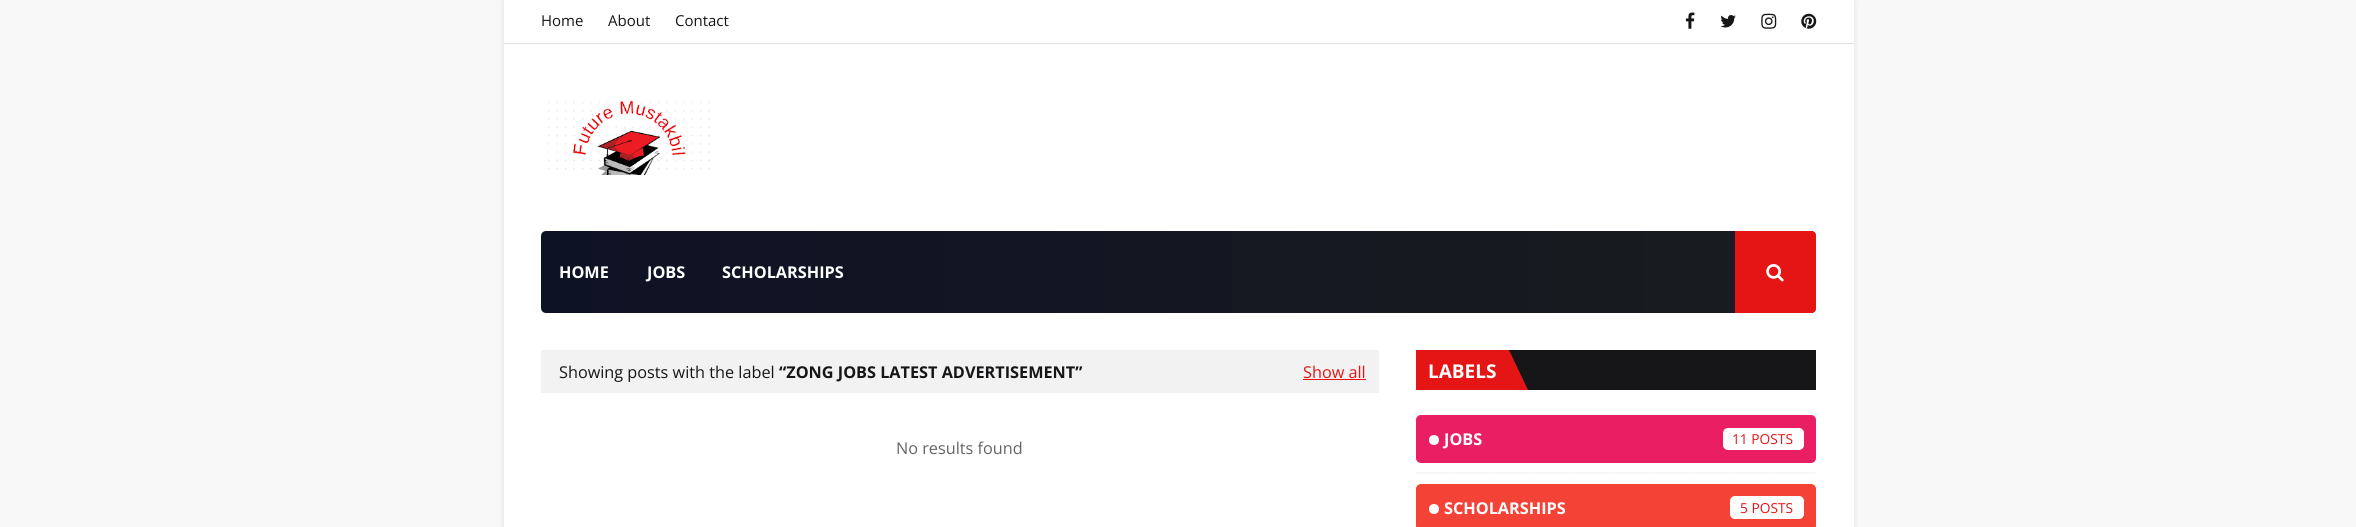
#include <cairo.h>
#include <math.h>
#include <stddef.h>

typedef struct { const char *family; double size; int italic, bold; unsigned color; } style_t;
static cairo_t *ctx;

static void ink(unsigned color) {
    cairo_set_source_rgb(ctx, (color >> 16) / 255.0, (color >> 8 & 255) / 255.0, (color & 255) / 255.0);
}

static void write(double x, double y, const char *s, const style_t *st) {
    cairo_select_font_face(ctx, st->family, st->italic ? CAIRO_FONT_SLANT_ITALIC : CAIRO_FONT_SLANT_NORMAL,
        st->bold ? CAIRO_FONT_WEIGHT_BOLD : CAIRO_FONT_WEIGHT_NORMAL);
    cairo_set_font_size(ctx, st->size);
    ink(st->color);
    cairo_move_to(ctx, x, y);
    cairo_show_text(ctx, s);
}

static void block(double x, double y, double w, double h, unsigned color) {
    ink(color);
    cairo_rectangle(ctx, x, y, w, h);
    cairo_fill(ctx);
}

static void round_path(double x, double y, double w, double h, double r) {
    cairo_new_sub_path(ctx);
    cairo_arc(ctx, x + w - r, y + h - r, r, 0, M_PI / 2);
    cairo_arc(ctx, x + r, y + h - r, r, M_PI / 2, M_PI);
    cairo_arc(ctx, x + r, y + r, r, M_PI, 1.5 * M_PI);
    cairo_arc(ctx, x + w - r, y + r, r, 1.5 * M_PI, 2 * M_PI);
    cairo_close_path(ctx);
}

static void blur_box(double x, double y, double w, double h, double r, double blur, double alpha) {
    cairo_push_group_with_content(ctx, CAIRO_CONTENT_ALPHA);
    cairo_set_operator(ctx, CAIRO_OPERATOR_SOURCE);
    for (int i = 15; i >= -15 && fmin(w, h) + blur * i / 3 > 0; i -= 2) {
        double e = blur * i / 6;
        cairo_set_source_rgba(ctx, 0, 0, 0, alpha * erfc((i - 1) / 8.5) / 2);
        round_path(x - e, y - e, w + 2 * e, h + 2 * e, fmax(0, fmin(r + e + blur * .6, fmin(w, h) / 2 + e)));
        cairo_fill(ctx);
    }
    cairo_pattern_t *soft = cairo_pop_group(ctx);
    cairo_mask(ctx, soft);
    cairo_pattern_destroy(soft);
}

static void paste(const char *path, double x, double y, double w, double h) {
    cairo_surface_t *image = cairo_image_surface_create_from_png(path);
    cairo_save(ctx);
    cairo_set_source_surface(ctx, image, x, y);
    cairo_rectangle(ctx, x, y, w, h);
    cairo_fill(ctx);
    cairo_restore(ctx);
    cairo_surface_destroy(image);
}

static const style_t s1 = {"Open Sans", 15, 0, 0, 0x161619};
static const style_t s2 = {"Open Sans", 16.25, 0, 1, 0xffffff};
static const style_t s3 = {"Open Sans", 16.25, 0, 0, 0x161619};
static const style_t s4 = {"Open Sans", 16.25, 0, 1, 0x161619};
static const style_t s5 = {"Open Sans", 16.25, 0, 0, 0xe51515};
static const style_t s6 = {"Open Sans", 16.25, 0, 0, 0x656565};
static const style_t s7 = {"Open Sans", 19, 0, 1, 0xffffff};
static const style_t s8 = {"Open Sans", 13.75, 0, 0, 0xe51515};

int main(void) {
    cairo_surface_t *surface = cairo_image_surface_create(CAIRO_FORMAT_RGB24, 2356, 527);
    ctx = cairo_create(surface);
    cairo_font_options_t *options = cairo_font_options_create();
    cairo_font_options_set_hint_metrics(options, CAIRO_HINT_METRICS_OFF);
    cairo_font_options_set_hint_style(options, CAIRO_HINT_STYLE_NONE);
    cairo_set_font_options(ctx, options);
    cairo_set_miter_limit(ctx, 4);
    cairo_pattern_t *gradient;
    ink(0xf8f8f8);
    cairo_paint(ctx);
    ink(0x000000);
    blur_box(504, 0, 1350, 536, 0, 3, 0.1);
    block(504, 0, 1350, 527, 0xffffff);
    block(504, 43, 1350, 1, 0xe0dede);
    write(541, 26, "Home", &s1);
    write(608, 26, "About", &s1);
    write(675, 26, "Contact", &s1);
    paste("pic1.png", 1685, 12, 10, 17);
    paste("pic2.png", 1720, 15, 16, 13);
    paste("pic3.png", 1761, 13, 16, 16);
    paste("pic4.png", 1801, 13, 16, 16);
    paste("pic5.png", 548, 100, 162, 75);
    gradient = cairo_pattern_create_linear(541, 272, 1816, 272);
    cairo_pattern_add_color_stop_rgba(gradient, 0, 0.055, 0.071, 0.145, 1);
    cairo_pattern_add_color_stop_rgba(gradient, 1, 0.098, 0.11, 0.118, 1);
    cairo_set_source(ctx, gradient);
    cairo_pattern_destroy(gradient);
    round_path(541, 231, 1275, 82, 5);
    cairo_fill(ctx);
    write(559, 278, "HOME", &s2);
    write(647, 278, "JOBS", &s2);
    write(722, 278, "SCHOLARSHIPS", &s2);
    ink(0xe51515);
    cairo_new_path(ctx);
    cairo_move_to(ctx, 1735, 231);
    cairo_line_to(ctx, 1811, 231);
    cairo_curve_to(ctx, 1814, 231, 1816, 233, 1816, 236);
    cairo_line_to(ctx, 1816, 308);
    cairo_curve_to(ctx, 1816, 311, 1814, 313, 1811, 313);
    cairo_line_to(ctx, 1735, 313);
    cairo_close_path(ctx);
    cairo_fill(ctx);
    paste("pic6.png", 1766, 264, 18, 18);
    block(541, 350, 838, 43, 0xf2f2f2);
    write(559, 378, "Showing posts with the label", &s3);
    write(779, 378, "“ZONG JOBS LATEST ADVERTISEMENT”", &s4);
    write(1303, 378, "Show all", &s5);
    block(1303, 379, 63, 1, 0xe51515);
    write(896, 454, "No results found", &s6);
    block(1509, 350, 307, 40, 0x161619);
    block(1416, 350, 93, 40, 0xe51515);
    write(1428, 378, "LABELS", &s7);
    ink(0xe51515);
    cairo_new_path(ctx);
    cairo_move_to(ctx, 1509, 390);
    cairo_line_to(ctx, 1509, 350);
    cairo_line_to(ctx, 1528, 390);
    cairo_close_path(ctx);
    cairo_fill(ctx);
    ink(0xe91e63);
    round_path(1416, 415, 400, 48, 5);
    cairo_fill(ctx);
    ink(0xffffff);
    cairo_arc(ctx, 1434, 440, 5, 0, 2 * M_PI);
    cairo_fill(ctx);
    write(1444, 445, "JOBS", &s2);
    round_path(1723, 428, 81, 22, 5);
    cairo_fill(ctx);
    write(1732, 444, "11 POSTS", &s8);
    cairo_new_path(ctx);
    cairo_move_to(ctx, 1416, 473);
    cairo_line_to(ctx, 1816, 473);
    ink(0xeaeaea);
    cairo_set_line_width(ctx, 1.2);
    cairo_set_dash(ctx, (double[]){1.25, 1.25}, 2, 0);
    cairo_stroke(ctx);
    ink(0xf44336);
    round_path(1416, 484, 400, 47, 5);
    cairo_fill(ctx);
    ink(0xffffff);
    cairo_arc(ctx, 1434, 509, 5, 0, 2 * M_PI);
    cairo_fill(ctx);
    write(1444, 514, "SCHOLARSHIPS", &s2);
    round_path(1730, 496, 74, 23, 5);
    cairo_fill(ctx);
    write(1740, 513, "5 POSTS", &s8);
    cairo_surface_write_to_png(surface, "screenshot.png");
    cairo_font_options_destroy(options);
    cairo_destroy(ctx);
    cairo_surface_destroy(surface);
    return 0;
}
